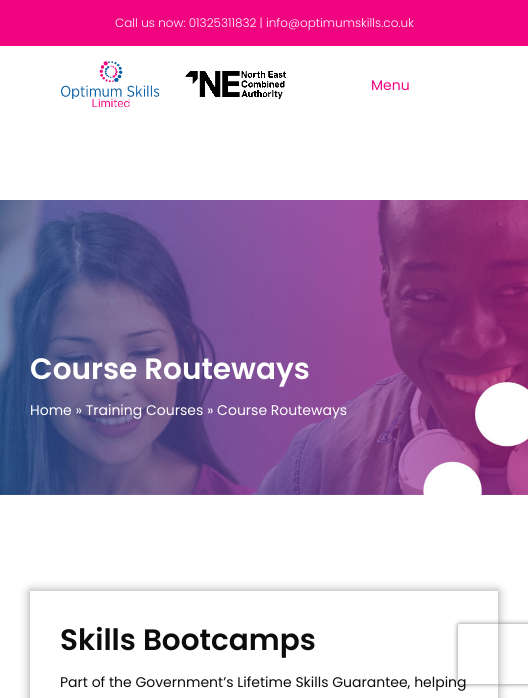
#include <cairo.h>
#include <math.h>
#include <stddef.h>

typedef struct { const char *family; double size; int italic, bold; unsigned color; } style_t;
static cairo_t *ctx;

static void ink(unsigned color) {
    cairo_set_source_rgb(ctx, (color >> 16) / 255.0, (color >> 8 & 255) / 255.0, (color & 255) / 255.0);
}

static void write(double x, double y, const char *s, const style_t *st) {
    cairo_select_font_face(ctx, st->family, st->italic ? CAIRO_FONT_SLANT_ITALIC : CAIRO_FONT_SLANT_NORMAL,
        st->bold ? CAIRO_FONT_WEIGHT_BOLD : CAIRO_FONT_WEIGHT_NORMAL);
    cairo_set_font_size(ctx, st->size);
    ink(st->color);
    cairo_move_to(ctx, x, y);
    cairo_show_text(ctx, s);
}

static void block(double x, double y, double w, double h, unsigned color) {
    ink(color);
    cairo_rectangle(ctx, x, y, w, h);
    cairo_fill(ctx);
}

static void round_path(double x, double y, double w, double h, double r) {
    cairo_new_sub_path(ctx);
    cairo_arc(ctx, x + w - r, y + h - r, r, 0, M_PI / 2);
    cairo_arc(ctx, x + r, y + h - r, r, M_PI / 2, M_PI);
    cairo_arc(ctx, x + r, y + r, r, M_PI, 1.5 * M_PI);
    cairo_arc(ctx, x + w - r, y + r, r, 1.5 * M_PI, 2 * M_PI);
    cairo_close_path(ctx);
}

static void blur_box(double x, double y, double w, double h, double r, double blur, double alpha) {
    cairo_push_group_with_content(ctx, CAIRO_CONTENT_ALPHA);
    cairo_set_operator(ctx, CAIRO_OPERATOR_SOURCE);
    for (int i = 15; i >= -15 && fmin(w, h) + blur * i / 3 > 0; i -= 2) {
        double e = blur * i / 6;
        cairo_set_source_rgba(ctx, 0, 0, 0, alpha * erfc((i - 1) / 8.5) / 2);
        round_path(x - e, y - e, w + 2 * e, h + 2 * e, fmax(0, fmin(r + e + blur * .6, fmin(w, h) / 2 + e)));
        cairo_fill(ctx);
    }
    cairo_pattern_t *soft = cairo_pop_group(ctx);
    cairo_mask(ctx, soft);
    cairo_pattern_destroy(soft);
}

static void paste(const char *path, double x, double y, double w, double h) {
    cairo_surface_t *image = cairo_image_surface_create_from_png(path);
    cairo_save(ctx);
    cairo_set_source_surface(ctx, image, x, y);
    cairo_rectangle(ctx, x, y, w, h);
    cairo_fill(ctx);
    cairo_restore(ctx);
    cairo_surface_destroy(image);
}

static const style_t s1 = {"Poppins Light", 12, 0, 0, 0xffffff};
static const style_t s2 = {"Poppins", 14, 0, 0, 0xf0047f};
static const style_t s3 = {"Poppins SemiBold", 29.5, 0, 0, 0xffffff};
static const style_t s4 = {"Poppins", 14, 0, 0, 0xffffff};
static const style_t s5 = {"Poppins SemiBold", 29.5, 0, 0, 0x0d0b0e};
static const style_t s6 = {"Poppins", 14, 0, 0, 0x0d0b0e};

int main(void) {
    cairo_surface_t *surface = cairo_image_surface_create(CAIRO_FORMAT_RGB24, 528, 698);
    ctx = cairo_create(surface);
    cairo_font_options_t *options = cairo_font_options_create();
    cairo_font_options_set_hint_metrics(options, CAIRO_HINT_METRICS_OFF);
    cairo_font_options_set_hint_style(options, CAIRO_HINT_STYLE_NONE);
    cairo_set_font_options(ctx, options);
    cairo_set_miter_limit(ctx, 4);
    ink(0xffffff);
    cairo_paint(ctx);
    block(0, 0, 528, 46, 0xf0047f);
    write(115, 27, "Call us now: 01325311832 | info@optimumskills.co.uk", &s1);
    paste("pic1.png", 61, 61, 99, 47);
    paste("pic2.png", 185, 71, 101, 28);
    write(371, 90, "Menu", &s2);
    paste("pic3.png", 0, 200, 528, 295);
    write(30, 379, "Course Routeways", &s3);
    write(30, 415, "Home » Training Courses » Course Routeways", &s4);
    cairo_save(ctx);
    cairo_set_fill_rule(ctx, CAIRO_FILL_RULE_EVEN_ODD);
    cairo_new_path(ctx);
    cairo_move_to(ctx, 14, 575);
    cairo_line_to(ctx, 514, 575);
    cairo_line_to(ctx, 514, 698);
    cairo_line_to(ctx, 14, 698);
    cairo_close_path(ctx);
    cairo_move_to(ctx, 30, 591);
    cairo_line_to(ctx, 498, 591);
    cairo_line_to(ctx, 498, 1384);
    cairo_line_to(ctx, 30, 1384);
    cairo_close_path(ctx);
    cairo_clip(ctx);
    ink(0x000000);
    blur_box(30, 591, 468, 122, 0, 5, 0.39);
    cairo_restore(ctx);
    write(60, 650, "Skills Bootcamps", &s5);
    cairo_save(ctx);
    cairo_set_fill_rule(ctx, CAIRO_FILL_RULE_EVEN_ODD);
    cairo_new_path(ctx);
    cairo_move_to(ctx, 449, 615);
    cairo_line_to(ctx, 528, 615);
    cairo_line_to(ctx, 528, 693);
    cairo_line_to(ctx, 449, 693);
    cairo_close_path(ctx);
    cairo_move_to(ctx, 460, 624);
    cairo_line_to(ctx, 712, 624);
    cairo_curve_to(ctx, 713, 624, 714, 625, 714, 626);
    cairo_line_to(ctx, 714, 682);
    cairo_curve_to(ctx, 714, 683, 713, 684, 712, 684);
    cairo_line_to(ctx, 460, 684);
    cairo_curve_to(ctx, 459, 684, 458, 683, 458, 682);
    cairo_line_to(ctx, 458, 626);
    cairo_curve_to(ctx, 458, 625, 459, 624, 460, 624);
    cairo_close_path(ctx);
    cairo_clip(ctx);
    ink(0x808080);
    blur_box(458, 624, 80, 60, 2, 2.5, 1);
    cairo_restore(ctx);
    write(60, 687, "Part of the Government’s Lifetime Skills Guarantee, helping", &s6);
    cairo_surface_write_to_png(surface, "screenshot.png");
    cairo_font_options_destroy(options);
    cairo_destroy(ctx);
    cairo_surface_destroy(surface);
    return 0;
}
